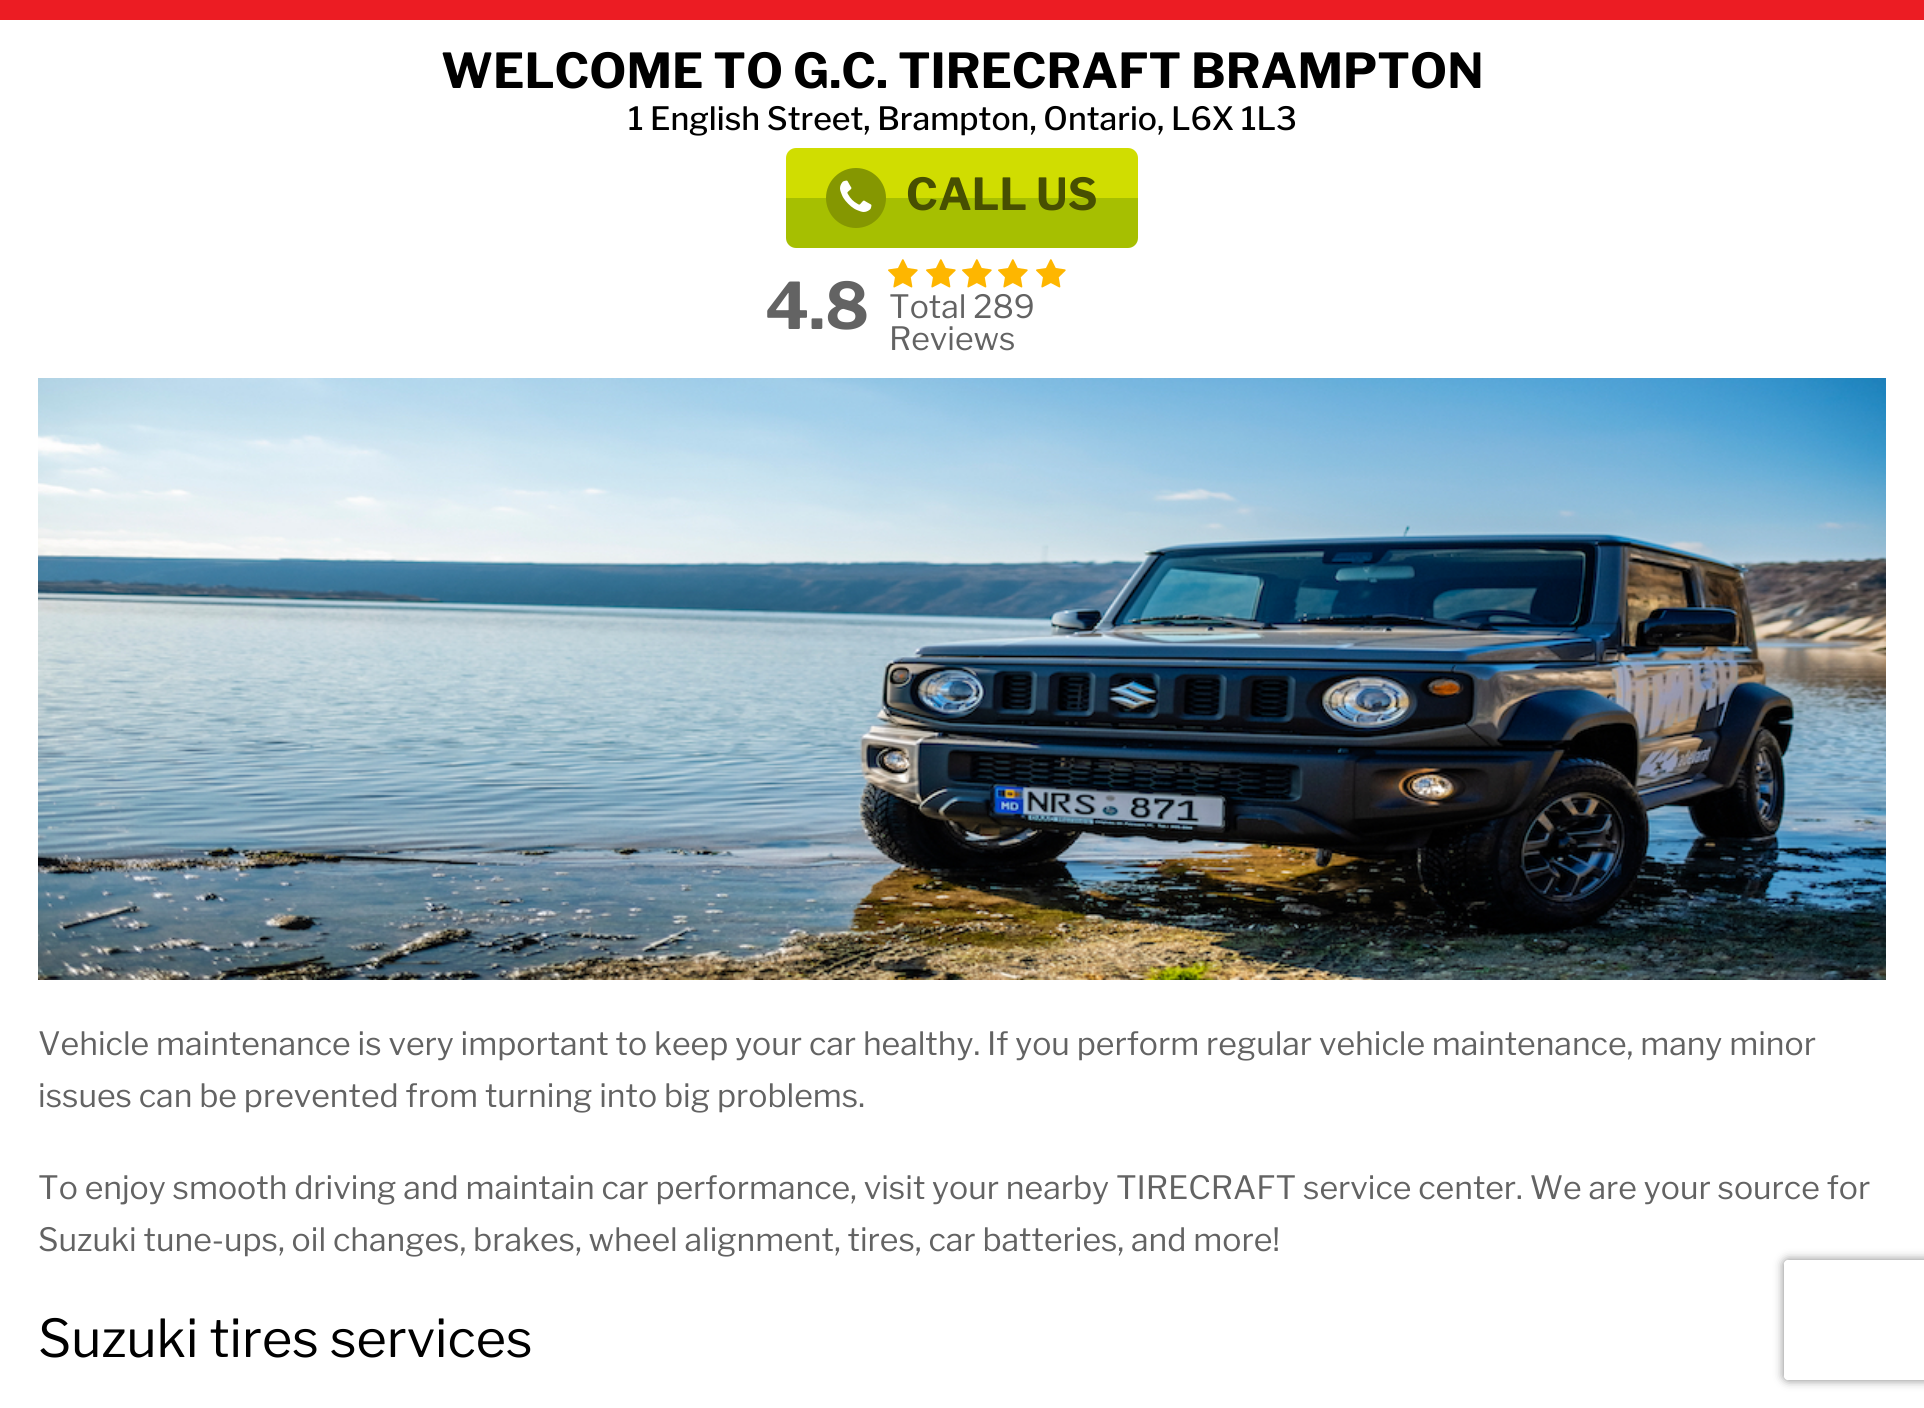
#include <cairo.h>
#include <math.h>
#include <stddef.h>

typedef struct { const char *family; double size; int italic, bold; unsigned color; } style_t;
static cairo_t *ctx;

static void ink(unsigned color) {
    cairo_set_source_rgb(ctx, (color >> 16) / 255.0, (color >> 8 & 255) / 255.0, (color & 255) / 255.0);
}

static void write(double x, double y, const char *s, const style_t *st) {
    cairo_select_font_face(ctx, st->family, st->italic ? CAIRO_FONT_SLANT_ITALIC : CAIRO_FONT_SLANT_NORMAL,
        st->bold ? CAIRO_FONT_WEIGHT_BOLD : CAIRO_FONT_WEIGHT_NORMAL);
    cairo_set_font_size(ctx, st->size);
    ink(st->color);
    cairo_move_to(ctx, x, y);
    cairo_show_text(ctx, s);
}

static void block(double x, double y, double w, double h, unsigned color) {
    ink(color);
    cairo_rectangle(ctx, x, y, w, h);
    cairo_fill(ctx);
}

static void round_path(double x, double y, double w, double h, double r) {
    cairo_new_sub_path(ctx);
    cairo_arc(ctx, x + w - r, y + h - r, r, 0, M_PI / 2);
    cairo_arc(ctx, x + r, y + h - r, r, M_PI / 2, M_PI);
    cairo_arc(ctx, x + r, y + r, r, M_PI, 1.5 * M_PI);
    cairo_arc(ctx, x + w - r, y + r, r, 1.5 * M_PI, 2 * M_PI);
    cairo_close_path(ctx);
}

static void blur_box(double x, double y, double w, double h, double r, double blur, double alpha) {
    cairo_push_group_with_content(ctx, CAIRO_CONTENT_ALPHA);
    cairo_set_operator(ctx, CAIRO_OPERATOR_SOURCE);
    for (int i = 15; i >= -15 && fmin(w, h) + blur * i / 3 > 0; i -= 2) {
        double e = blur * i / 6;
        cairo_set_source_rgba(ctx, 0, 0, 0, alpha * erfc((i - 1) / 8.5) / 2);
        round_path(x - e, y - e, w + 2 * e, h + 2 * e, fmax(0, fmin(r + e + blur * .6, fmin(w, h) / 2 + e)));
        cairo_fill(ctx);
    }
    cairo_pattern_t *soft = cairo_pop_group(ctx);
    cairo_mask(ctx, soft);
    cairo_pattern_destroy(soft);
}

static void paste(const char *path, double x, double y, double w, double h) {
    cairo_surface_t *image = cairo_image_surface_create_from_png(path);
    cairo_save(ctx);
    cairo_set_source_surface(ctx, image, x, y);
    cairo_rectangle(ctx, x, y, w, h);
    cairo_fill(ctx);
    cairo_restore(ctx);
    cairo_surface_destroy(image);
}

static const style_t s1 = {"Libre Franklin", 48, 0, 1, 0x000000};
static const style_t s2 = {"Libre Franklin Medium", 32, 0, 0, 0x000000};
static const style_t s3 = {"Libre Franklin", 44, 0, 1, 0x474f01};
static const style_t s4 = {"Libre Franklin", 64, 0, 1, 0x636363};
static const style_t s5 = {"Libre Franklin", 32, 0, 0, 0x636363};
static const style_t s6 = {"Libre Franklin", 52, 0, 0, 0x000000};

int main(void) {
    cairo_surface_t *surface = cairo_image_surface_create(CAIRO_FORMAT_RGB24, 1924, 1408);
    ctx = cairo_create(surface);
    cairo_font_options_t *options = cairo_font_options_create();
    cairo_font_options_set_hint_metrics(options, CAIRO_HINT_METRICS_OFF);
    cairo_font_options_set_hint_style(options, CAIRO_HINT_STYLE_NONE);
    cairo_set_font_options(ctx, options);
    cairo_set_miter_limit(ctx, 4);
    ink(0xffffff);
    cairo_paint(ctx);
    block(0, 0, 1924, 20, 0xec1c23);
    write(441, 88, "WELCOME TO G.C. TIRECRAFT BRAMPTON", &s1);
    write(628, 130, "1 English Street, Brampton, Ontario, L6X 1L3", &s2);
    ink(0xd0dd01);
    cairo_new_path(ctx);
    cairo_move_to(ctx, 796, 148);
    cairo_line_to(ctx, 1128, 148);
    cairo_curve_to(ctx, 1133.5, 148, 1138, 152.5, 1138, 158);
    cairo_line_to(ctx, 1138, 198);
    cairo_line_to(ctx, 786, 198);
    cairo_line_to(ctx, 786, 158);
    cairo_curve_to(ctx, 786, 152.5, 790.5, 148, 796, 148);
    cairo_close_path(ctx);
    cairo_fill(ctx);
    ink(0xa6bf01);
    cairo_new_path(ctx);
    cairo_move_to(ctx, 786, 198);
    cairo_line_to(ctx, 1138, 198);
    cairo_line_to(ctx, 1138, 238);
    cairo_curve_to(ctx, 1138, 243.5, 1133.5, 248, 1128, 248);
    cairo_line_to(ctx, 796, 248);
    cairo_curve_to(ctx, 790.5, 248, 786, 243.5, 786, 238);
    cairo_close_path(ctx);
    cairo_fill(ctx);
    ink(0x859701);
    cairo_arc(ctx, 856, 198, 30, 0, 2 * M_PI);
    cairo_fill(ctx);
    paste("pic1.png", 840, 180, 32, 32);
    write(906, 210, "CALL US", &s3);
    write(765, 329, "4.8", &s4);
    paste("pic2.png", 888, 259, 30, 29);
    paste("pic2.png", 926, 259, 30, 29);
    paste("pic2.png", 962, 259, 30, 29);
    paste("pic2.png", 998, 259, 30, 29);
    paste("pic2.png", 1036, 259, 30, 29);
    write(889, 318, "Total 289", &s5);
    write(889, 350, "Reviews", &s5);
    paste("pic3.png", 38, 378, 1848, 602);
    write(38, 1055, "Vehicle maintenance is very important to keep your car healthy. If you perform regular vehicle maintenance, many minor", &s5);
    write(38, 1107, "issues can be prevented from turning into big problems.", &s5);
    write(38, 1199, "To enjoy smooth driving and maintain car performance, visit your nearby TIRECRAFT service center. We are your source for", &s5);
    write(38, 1251, "Suzuki tune-ups, oil changes, brakes, wheel alignment, tires, car batteries, and more!", &s5);
    write(38, 1357, "Suzuki tires services", &s6);
    cairo_save(ctx);
    cairo_set_fill_rule(ctx, CAIRO_FILL_RULE_EVEN_ODD);
    cairo_new_path(ctx);
    cairo_move_to(ctx, 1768, 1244);
    cairo_line_to(ctx, 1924, 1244);
    cairo_line_to(ctx, 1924, 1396);
    cairo_line_to(ctx, 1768, 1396);
    cairo_close_path(ctx);
    cairo_move_to(ctx, 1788, 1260);
    cairo_line_to(ctx, 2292, 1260);
    cairo_curve_to(ctx, 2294, 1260, 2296, 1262, 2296, 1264);
    cairo_line_to(ctx, 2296, 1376);
    cairo_curve_to(ctx, 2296, 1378, 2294, 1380, 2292, 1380);
    cairo_line_to(ctx, 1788, 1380);
    cairo_curve_to(ctx, 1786, 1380, 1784, 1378, 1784, 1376);
    cairo_line_to(ctx, 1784, 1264);
    cairo_curve_to(ctx, 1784, 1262, 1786, 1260, 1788, 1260);
    cairo_close_path(ctx);
    cairo_clip(ctx);
    ink(0x808080);
    blur_box(1784, 1260, 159, 120, 4, 5, 1);
    cairo_restore(ctx);
    cairo_surface_write_to_png(surface, "screenshot.png");
    cairo_font_options_destroy(options);
    cairo_destroy(ctx);
    cairo_surface_destroy(surface);
    return 0;
}
